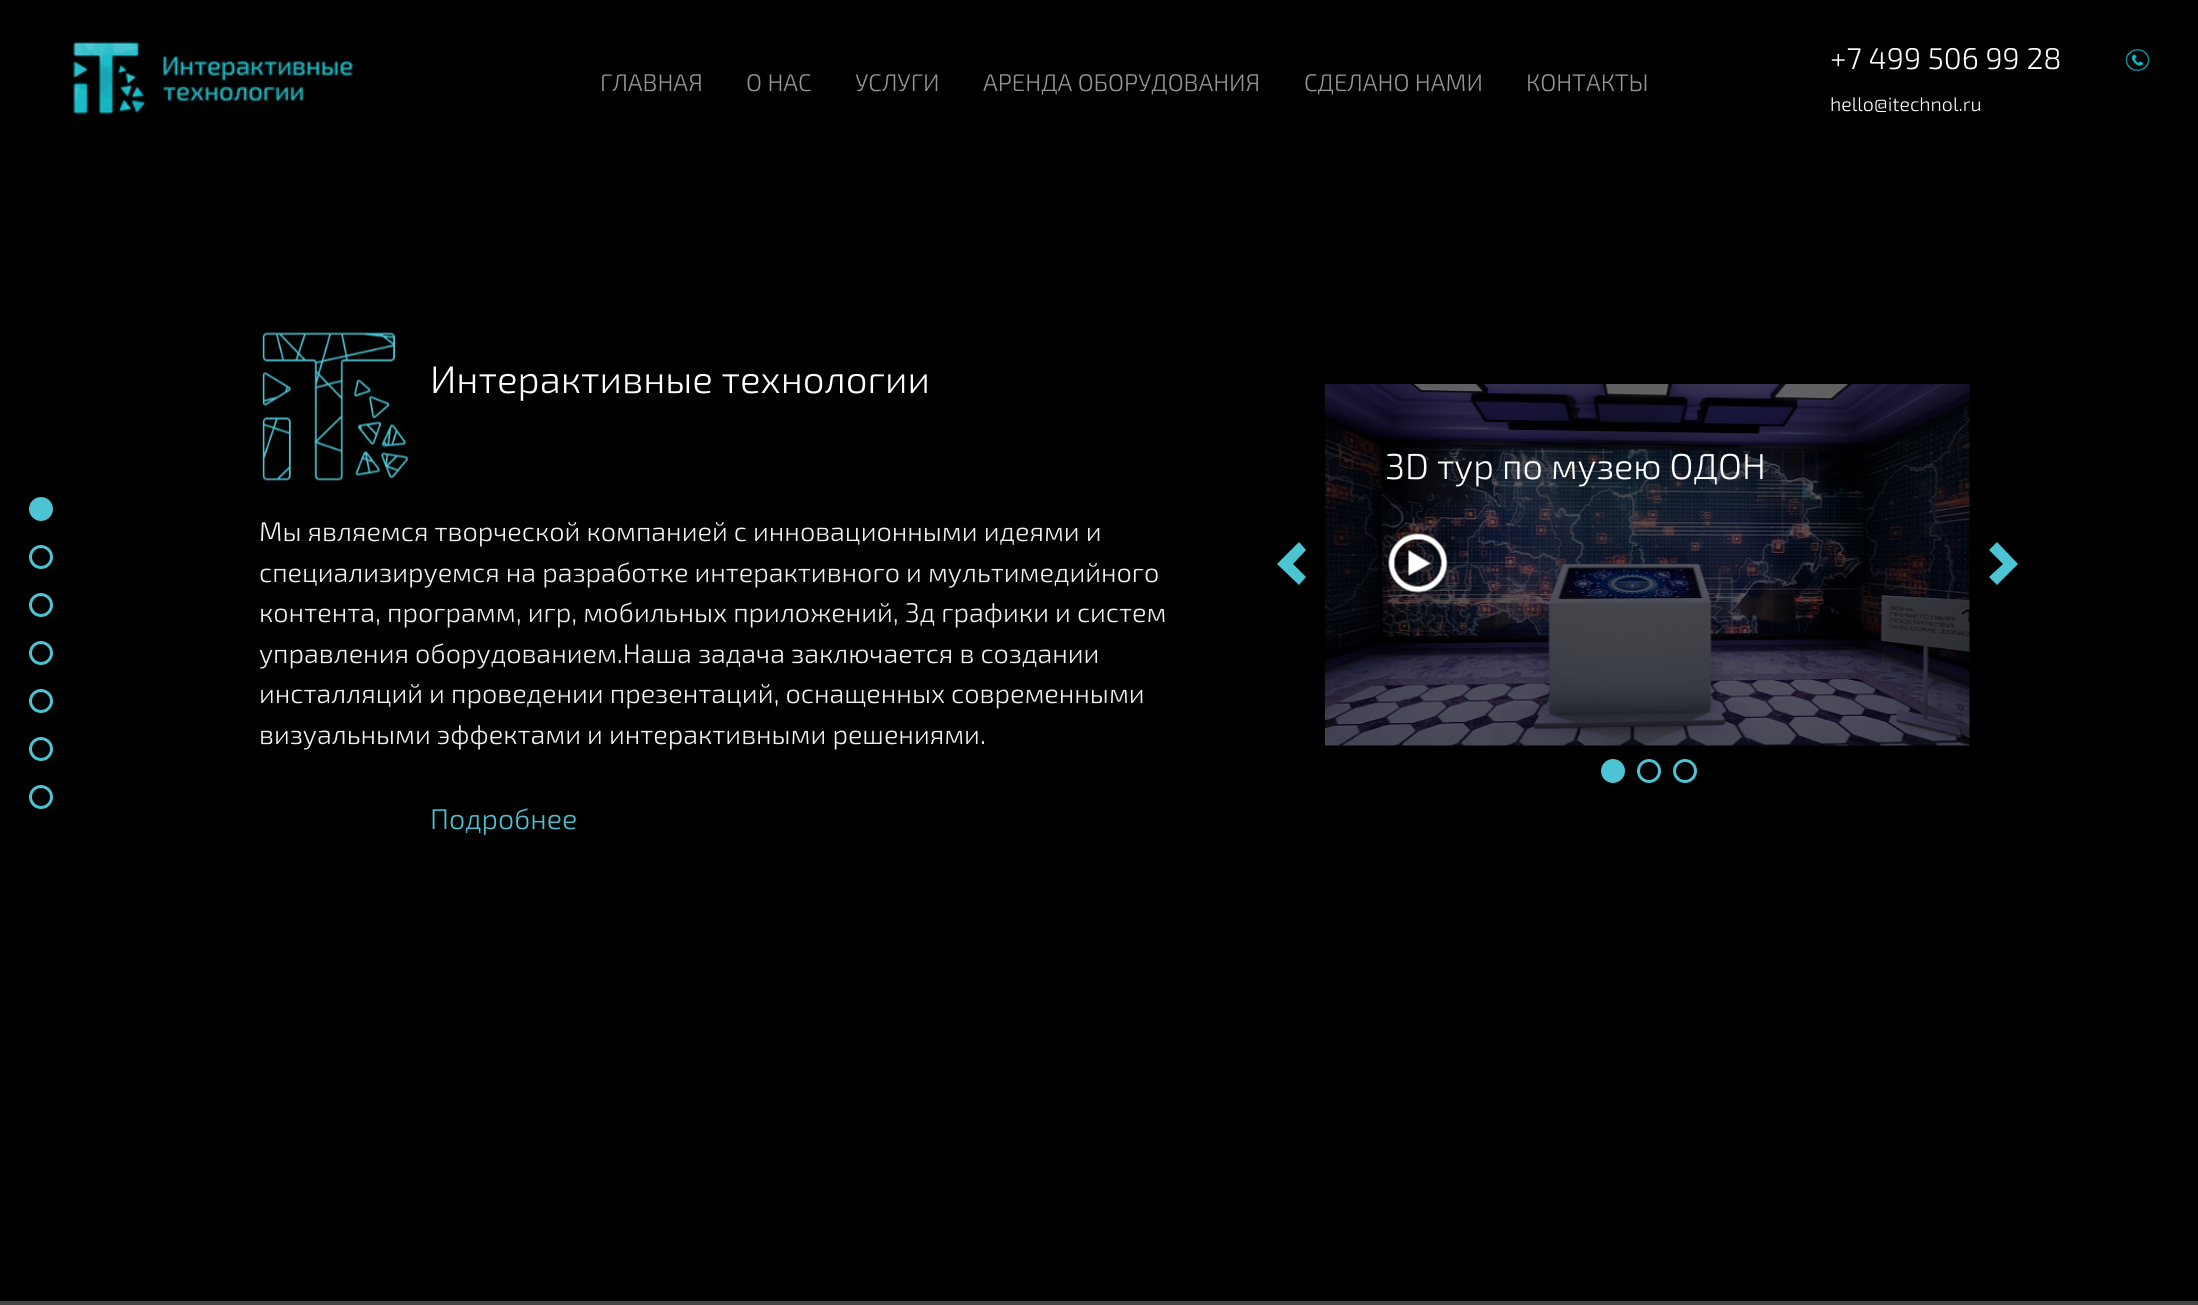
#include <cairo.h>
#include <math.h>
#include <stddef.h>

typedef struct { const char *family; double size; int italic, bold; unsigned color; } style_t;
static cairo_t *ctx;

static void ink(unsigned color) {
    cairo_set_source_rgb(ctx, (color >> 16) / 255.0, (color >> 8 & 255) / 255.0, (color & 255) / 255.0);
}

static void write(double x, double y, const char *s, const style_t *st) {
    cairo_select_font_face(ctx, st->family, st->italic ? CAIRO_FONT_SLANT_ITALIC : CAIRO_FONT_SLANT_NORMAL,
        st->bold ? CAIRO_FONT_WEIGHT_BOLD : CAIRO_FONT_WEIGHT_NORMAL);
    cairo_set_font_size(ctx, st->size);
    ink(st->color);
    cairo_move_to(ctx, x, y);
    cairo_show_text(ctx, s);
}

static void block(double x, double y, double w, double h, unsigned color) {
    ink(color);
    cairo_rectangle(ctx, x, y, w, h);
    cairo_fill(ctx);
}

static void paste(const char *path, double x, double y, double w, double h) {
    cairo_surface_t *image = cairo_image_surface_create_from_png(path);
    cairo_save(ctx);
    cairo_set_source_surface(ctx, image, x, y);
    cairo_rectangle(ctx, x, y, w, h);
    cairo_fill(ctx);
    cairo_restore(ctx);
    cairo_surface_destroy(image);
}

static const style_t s1 = {"Exo 2 Light", 30, 0, 0, 0xffffff};
static const style_t s2 = {"Exo 2 Light", 19.5, 0, 0, 0xffffff};
static const style_t s3 = {"Exo 2 Light", 24, 0, 0, 0x959595};
static const style_t s4 = {"Exo 2 Light", 38.4, 0, 0, 0xffffff};
static const style_t s5 = {"Exo 2 Light", 27, 0, 0, 0xf2f2f2};
static const style_t s6 = {"Exo 2 Light", 28.5, 0, 0, 0x4cc4d3};
static const style_t s7 = {"Exo 2 Light", 36, 0, 0, 0xffffff};

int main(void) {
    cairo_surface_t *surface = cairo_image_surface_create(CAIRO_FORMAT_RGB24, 2198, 1305);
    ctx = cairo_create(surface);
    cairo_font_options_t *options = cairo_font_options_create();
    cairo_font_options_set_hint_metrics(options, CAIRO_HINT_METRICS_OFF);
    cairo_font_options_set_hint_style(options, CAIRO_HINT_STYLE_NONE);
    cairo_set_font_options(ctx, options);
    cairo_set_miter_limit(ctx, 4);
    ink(0x000000);
    cairo_paint(ctx);
    paste("pic1.png", 73, 41, 280, 74);
    write(1830, 69, "+7 499 506 99 28", &s1);
    write(1830, 111, "hello@itechnol.ru", &s2);
    paste("pic2.png", 2125, 49, 25, 22);
    write(600, 91, "ГЛАВНАЯ", &s3);
    write(746, 91, "О НАС", &s3);
    write(855, 91, "УСЛУГИ", &s3);
    write(983, 91, "АРЕНДА ОБОРУДОВАНИЯ", &s3);
    write(1304, 91, "СДЕЛАНО НАМИ", &s3);
    write(1526, 91, "КОНТАКТЫ", &s3);
    ink(0x4cc4d3);
    cairo_new_path(ctx);
    cairo_arc(ctx, 41, 509, 10.5, 0, 2 * M_PI);
    cairo_fill_preserve(ctx);
    cairo_set_line_width(ctx, 3);
    cairo_stroke(ctx);
    cairo_arc(ctx, 41, 557, 10.5, 0, 2 * M_PI);
    cairo_stroke(ctx);
    cairo_arc(ctx, 41, 605, 10.5, 0, 2 * M_PI);
    cairo_stroke(ctx);
    cairo_arc(ctx, 41, 653, 10.5, 0, 2 * M_PI);
    cairo_stroke(ctx);
    cairo_arc(ctx, 41, 701, 10.5, 0, 2 * M_PI);
    cairo_stroke(ctx);
    cairo_arc(ctx, 41, 749, 10.5, 0, 2 * M_PI);
    cairo_stroke(ctx);
    cairo_arc(ctx, 41, 797, 10.5, 0, 2 * M_PI);
    cairo_stroke(ctx);
    paste("pic3.png", 262, 332, 146, 149);
    write(430, 393, "Интерактивные технологии", &s4);
    write(259, 541, "Мы являемся творческой компанией с инновационными идеями и", &s5);
    write(259, 582, "специализируемся на разработке интерактивного и мультимедийного", &s5);
    write(259, 622, "контента, программ, игр, мобильных приложений, 3д графики и систем", &s5);
    write(259, 663, "управления оборудованием.Наша задача заключается в создании", &s5);
    write(259, 703, "инсталляций и проведении презентаций, оснащенных современными", &s5);
    write(259, 744, "визуальными эффектами и интерактивными решениями.", &s5);
    write(430, 829, "Подробнее", &s6);
    paste("pic4.png", 1325, 384, 645, 362);
    write(1385, 479, "3D тур по музею ОДОН", &s7);
    paste("pic5.png", 1387, 530, 63, 65);
    ink(0x4cc4d3);
    cairo_new_path(ctx);
    cairo_move_to(ctx, 1306, 550);
    cairo_line_to(ctx, 1293, 564);
    cairo_line_to(ctx, 1306, 577);
    cairo_line_to(ctx, 1299, 585);
    cairo_line_to(ctx, 1277, 564);
    cairo_line_to(ctx, 1299, 542);
    cairo_close_path(ctx);
    cairo_fill(ctx);
    cairo_new_path(ctx);
    cairo_move_to(ctx, 2018, 564);
    cairo_line_to(ctx, 1997, 585);
    cairo_line_to(ctx, 1989, 577);
    cairo_line_to(ctx, 2003, 564);
    cairo_line_to(ctx, 1989, 550);
    cairo_line_to(ctx, 1997, 542);
    cairo_close_path(ctx);
    cairo_fill(ctx);
    cairo_arc(ctx, 1613, 771, 10.5, 0, 2 * M_PI);
    cairo_fill_preserve(ctx);
    cairo_stroke(ctx);
    cairo_arc(ctx, 1649, 771, 10.5, 0, 2 * M_PI);
    cairo_stroke(ctx);
    cairo_arc(ctx, 1685, 771, 10.5, 0, 2 * M_PI);
    cairo_stroke(ctx);
    block(0, 1301, 2198, 4, 0x454545);
    cairo_surface_write_to_png(surface, "screenshot.png");
    cairo_font_options_destroy(options);
    cairo_destroy(ctx);
    cairo_surface_destroy(surface);
    return 0;
}
